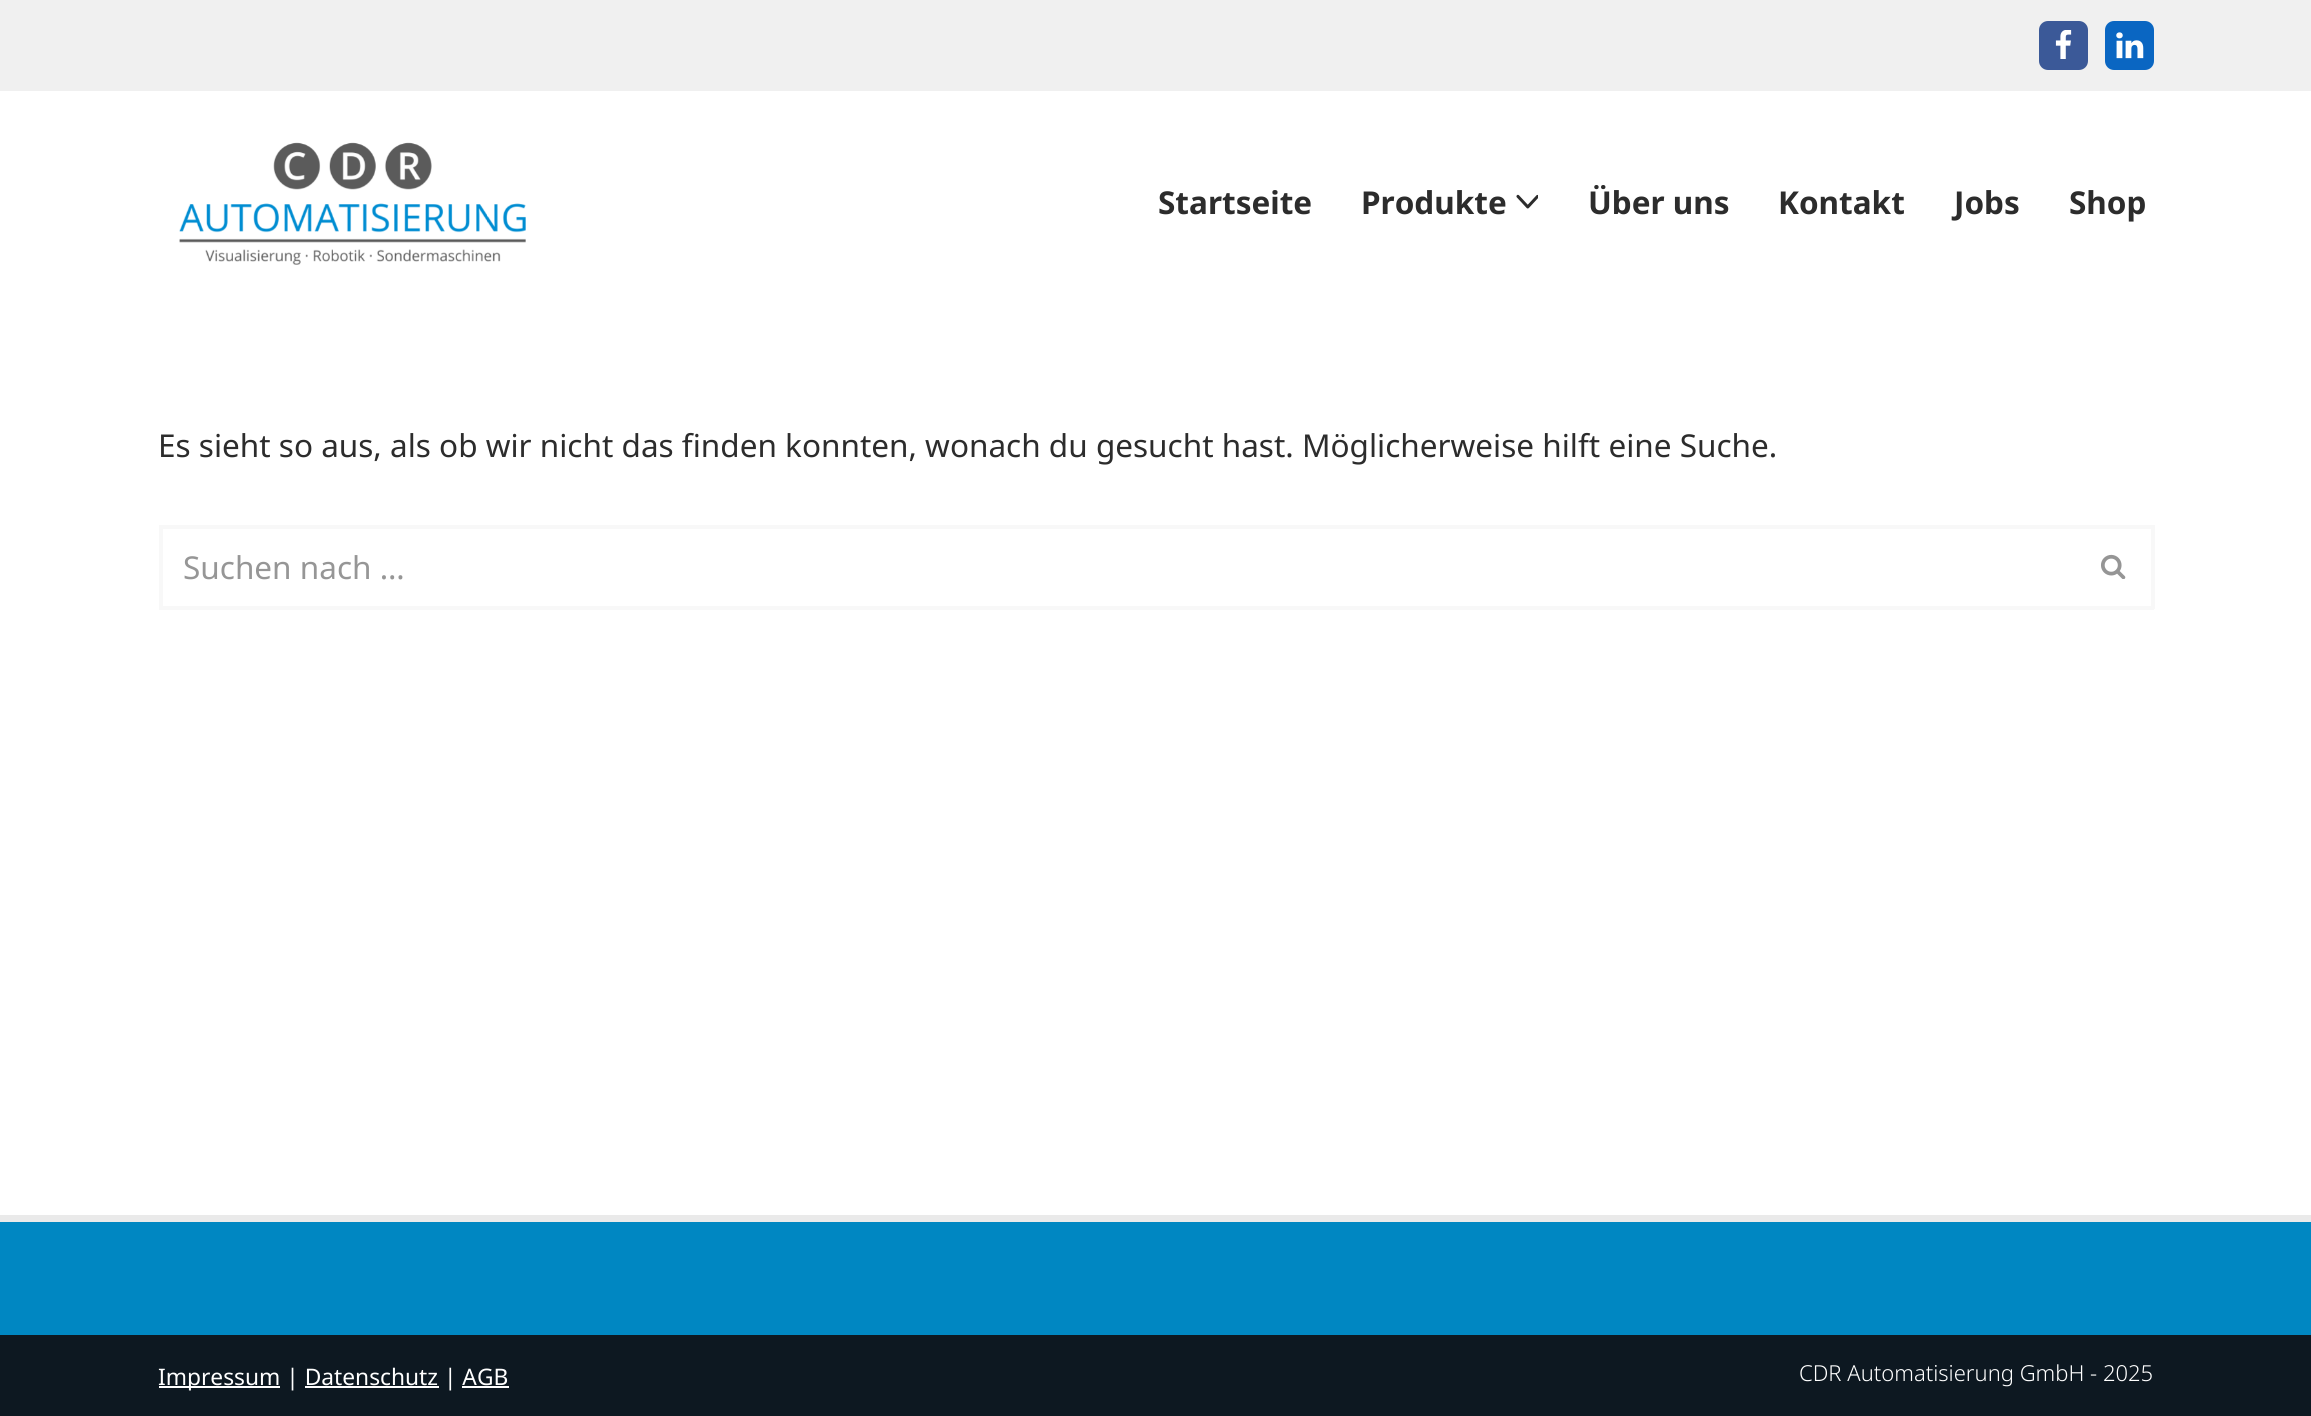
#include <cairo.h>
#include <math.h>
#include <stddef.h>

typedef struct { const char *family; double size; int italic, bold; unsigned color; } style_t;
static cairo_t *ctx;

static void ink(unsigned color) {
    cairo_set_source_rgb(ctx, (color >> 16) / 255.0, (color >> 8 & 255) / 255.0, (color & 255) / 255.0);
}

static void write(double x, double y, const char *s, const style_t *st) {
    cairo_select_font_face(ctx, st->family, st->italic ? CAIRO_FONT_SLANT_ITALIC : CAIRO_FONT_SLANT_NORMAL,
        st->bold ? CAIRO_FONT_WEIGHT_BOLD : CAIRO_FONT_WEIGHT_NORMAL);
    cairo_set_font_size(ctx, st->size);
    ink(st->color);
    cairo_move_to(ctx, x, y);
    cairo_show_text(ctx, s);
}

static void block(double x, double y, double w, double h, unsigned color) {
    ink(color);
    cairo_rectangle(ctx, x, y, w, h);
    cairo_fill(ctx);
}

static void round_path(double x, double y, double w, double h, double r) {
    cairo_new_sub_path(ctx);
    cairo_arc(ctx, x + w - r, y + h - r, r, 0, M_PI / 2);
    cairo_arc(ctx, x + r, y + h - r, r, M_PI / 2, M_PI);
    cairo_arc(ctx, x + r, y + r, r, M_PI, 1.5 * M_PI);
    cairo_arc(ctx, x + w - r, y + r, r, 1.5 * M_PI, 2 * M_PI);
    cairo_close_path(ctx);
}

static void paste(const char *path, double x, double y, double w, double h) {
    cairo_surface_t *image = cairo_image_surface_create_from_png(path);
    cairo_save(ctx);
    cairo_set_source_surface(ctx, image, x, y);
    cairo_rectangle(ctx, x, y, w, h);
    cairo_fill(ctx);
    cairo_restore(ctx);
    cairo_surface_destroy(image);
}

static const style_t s1 = {"Noto Sans", 31.5, 0, 1, 0x2c2c2c};
static const style_t s2 = {"Noto Sans", 31.5, 0, 0, 0x2c2c2c};
static const style_t s3 = {"Noto Sans", 31.5, 0, 0, 0x969696};
static const style_t s4 = {"Noto Sans", 22.75, 0, 0, 0xffffff};
static const style_t s5 = {"Noto Sans Light", 22, 0, 0, 0xffffff};

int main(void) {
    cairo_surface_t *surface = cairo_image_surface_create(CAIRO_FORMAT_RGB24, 2311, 1416);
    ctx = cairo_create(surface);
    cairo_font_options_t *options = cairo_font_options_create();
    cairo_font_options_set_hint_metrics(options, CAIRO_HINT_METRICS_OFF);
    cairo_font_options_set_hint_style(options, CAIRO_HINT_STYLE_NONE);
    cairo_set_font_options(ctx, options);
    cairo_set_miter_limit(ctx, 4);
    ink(0xffffff);
    cairo_paint(ctx);
    block(0, 0, 2311, 91, 0xf0f0f0);
    ink(0x3b5998);
    round_path(2039, 21, 49, 49, 9);
    cairo_fill(ctx);
    paste("pic1.png", 2055, 30, 17, 29);
    ink(0x0a66c2);
    round_path(2105, 21, 49, 49, 9);
    cairo_fill(ctx);
    paste("pic2.png", 2116, 32, 28, 27);
    paste("pic3.png", 179, 142, 347, 123);
    write(1158, 214, "Startseite", &s1);
    write(1361, 214, "Produkte", &s1);
    paste("pic4.png", 1516, 194, 22, 15);
    write(1588, 214, "Über uns", &s1);
    write(1778, 214, "Kontakt", &s1);
    write(1954, 214, "Jobs", &s1);
    write(2069, 214, "Shop", &s1);
    write(158, 457, "Es sieht so aus, als ob wir nicht das finden konnten, wonach du gesucht hast. Möglicherweise hilft eine Suche.", &s2);
    block(159, 525, 1995, 4, 0xf8f8f8);
    block(159, 606, 1917, 4, 0xf8f8f8);
    block(159, 525, 4, 84, 0xf8f8f8);
    write(183, 579, "Suchen nach …", &s3);
    block(2151, 525, 4, 84, 0xf8f8f8);
    block(2076, 606, 78, 4, 0xf8f8f8);
    paste("pic5.png", 2101, 554, 25, 25);
    block(0, 1222, 2311, 113, 0x0087c2);
    block(0, 1215, 2311, 7, 0xeaeaea);
    block(0, 1335, 2311, 81, 0x0d1821);
    block(159, 1386, 121, 2, 0xffffff);
    write(158, 1385, "Impressum | Datenschutz | AGB", &s4);
    block(305, 1386, 134, 2, 0xffffff);
    block(462, 1386, 47, 2, 0xffffff);
    write(1799, 1381, "CDR Automatisierung GmbH - 2025", &s5);
    cairo_surface_write_to_png(surface, "screenshot.png");
    cairo_font_options_destroy(options);
    cairo_destroy(ctx);
    cairo_surface_destroy(surface);
    return 0;
}
